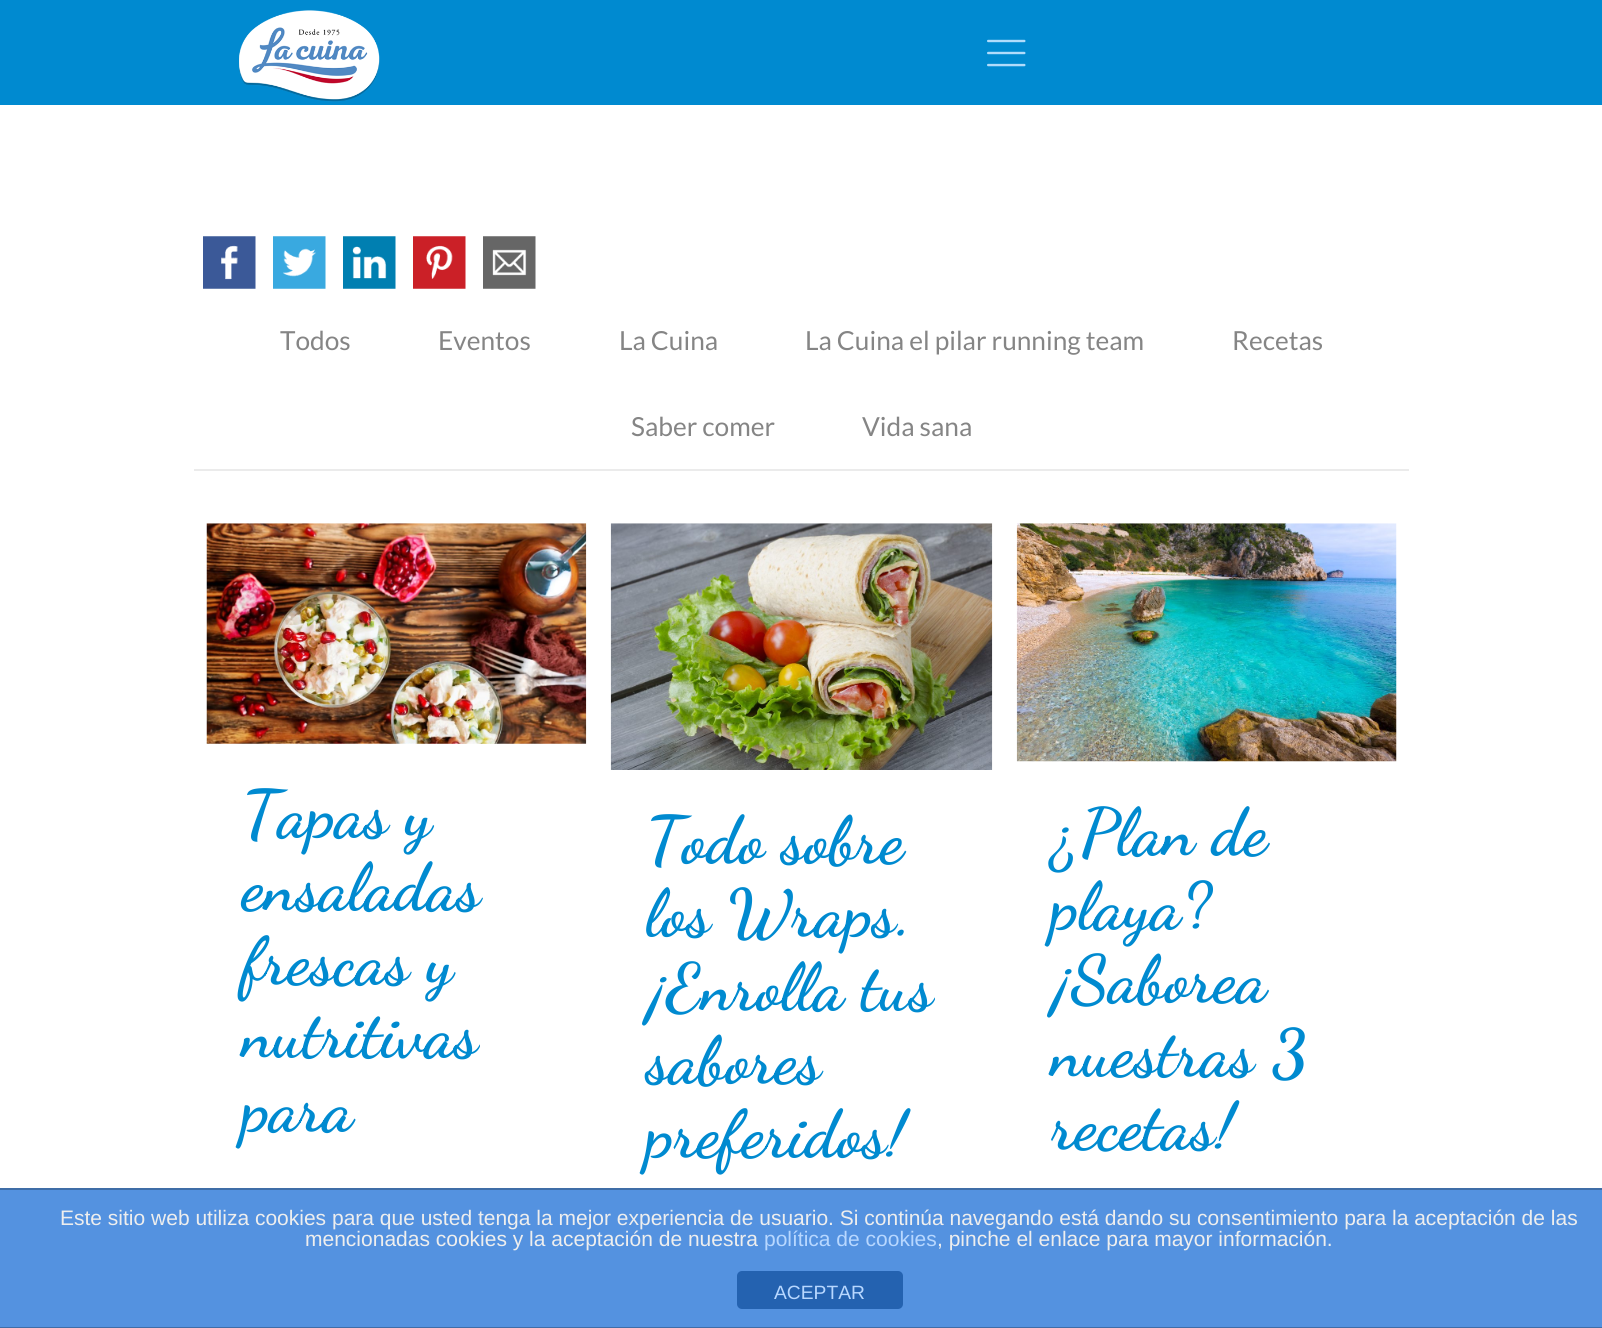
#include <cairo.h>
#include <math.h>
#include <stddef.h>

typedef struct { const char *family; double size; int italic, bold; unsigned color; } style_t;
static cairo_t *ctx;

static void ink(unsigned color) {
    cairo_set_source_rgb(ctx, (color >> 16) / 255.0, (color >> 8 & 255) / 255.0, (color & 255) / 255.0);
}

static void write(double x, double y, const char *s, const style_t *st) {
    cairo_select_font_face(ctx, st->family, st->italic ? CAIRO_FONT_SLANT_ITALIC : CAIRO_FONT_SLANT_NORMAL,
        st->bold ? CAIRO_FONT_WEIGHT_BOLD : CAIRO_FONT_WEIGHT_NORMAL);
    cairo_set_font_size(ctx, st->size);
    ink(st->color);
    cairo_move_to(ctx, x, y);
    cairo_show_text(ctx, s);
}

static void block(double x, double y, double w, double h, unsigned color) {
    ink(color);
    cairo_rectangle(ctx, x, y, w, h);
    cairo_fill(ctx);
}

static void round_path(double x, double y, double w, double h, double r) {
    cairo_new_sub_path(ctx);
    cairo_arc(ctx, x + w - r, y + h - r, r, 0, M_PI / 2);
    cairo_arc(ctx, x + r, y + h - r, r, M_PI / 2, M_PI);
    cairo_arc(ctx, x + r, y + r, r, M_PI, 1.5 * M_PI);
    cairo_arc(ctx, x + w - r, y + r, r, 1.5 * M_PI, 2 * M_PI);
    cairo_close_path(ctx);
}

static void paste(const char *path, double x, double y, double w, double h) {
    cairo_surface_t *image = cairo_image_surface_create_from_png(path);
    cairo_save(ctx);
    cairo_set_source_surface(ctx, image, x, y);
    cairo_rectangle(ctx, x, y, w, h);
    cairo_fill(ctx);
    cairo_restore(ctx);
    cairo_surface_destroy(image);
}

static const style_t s1 = {"Lato", 26.25, 0, 0, 0x858585};
static const style_t s2 = {"Dancing Script", 66.5, 0, 1, 0x008ad0};
static const style_t s3 = {"Liberation Sans", 21, 0, 0, 0xeeeeee};
static const style_t s4 = {"Liberation Sans", 21, 0, 0, 0xb7d7ff};
static const style_t s5 = {"Liberation Sans", 19.25, 0, 0, 0xb7d7ff};

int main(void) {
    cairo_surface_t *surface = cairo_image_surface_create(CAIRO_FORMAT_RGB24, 1602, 1328);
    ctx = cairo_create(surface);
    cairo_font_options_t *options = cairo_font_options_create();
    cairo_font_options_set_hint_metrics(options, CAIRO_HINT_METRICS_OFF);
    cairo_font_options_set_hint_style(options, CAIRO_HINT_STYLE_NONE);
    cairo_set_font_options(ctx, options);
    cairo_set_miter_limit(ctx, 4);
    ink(0xffffff);
    cairo_paint(ctx);
    block(0, 0, 1602, 105, 0x008ad0);
    paste("pic1.png", 239, 10, 141, 92);
    paste("pic2.png", 987, 39, 39, 28);
    paste("pic3.png", 203, 236, 53, 53);
    paste("pic4.png", 273, 236, 53, 53);
    paste("pic5.png", 343, 236, 53, 53);
    paste("pic6.png", 413, 236, 53, 53);
    paste("pic7.png", 483, 236, 53, 53);
    block(194, 469, 1215, 2, 0xebebeb);
    write(280, 350, "Todos", &s1);
    write(438, 350, "Eventos", &s1);
    write(619, 350, "La Cuina", &s1);
    write(805, 350, "La Cuina el pilar running team", &s1);
    write(1232, 350, "Recetas", &s1);
    write(631, 436, "Saber comer", &s1);
    write(862, 436, "Vida sana", &s1);
    paste("pic8.png", 206, 523, 381, 221);
    write(242, 836, "Tapas y", &s2);
    write(242, 909, "ensaladas", &s2);
    write(242, 983, "frescas y", &s2);
    write(242, 1056, "nutritivas", &s2);
    write(242, 1130, "para", &s2);
    paste("pic9.png", 610, 523, 383, 247);
    write(646, 862, "Todo sobre", &s2);
    write(646, 935, "los Wraps.", &s2);
    write(646, 1009, "¡Enrolla tus", &s2);
    write(646, 1082, "sabores", &s2);
    write(646, 1156, "preferidos!", &s2);
    paste("pic10.png", 1016, 523, 381, 239);
    write(1051, 854, "¿Plan de", &s2);
    write(1051, 928, "playa?", &s2);
    write(1051, 1001, "¡Saborea", &s2);
    write(1051, 1075, "nuestras 3", &s2);
    write(1051, 1148, "recetas!", &s2);
    block(0, 1190, 1602, 137, 0x5492e0);
    block(0, 1188, 1602, 2, 0x3f6da7);
    block(0, 1327, 1602, 1, 0x3f6da7);
    write(60, 1225, "Este sitio web utiliza cookies para que usted tenga la mejor experiencia de usuario. Si continúa navegando está dando su consentimiento para la aceptación de las", &s3);
    write(305, 1246, "mencionadas cookies y la aceptación de nuestra", &s3);
    write(764, 1246, "política de cookies", &s4);
    write(937, 1246, ", pinche el enlace para mayor información.", &s3);
    ink(0x2462b0);
    round_path(737, 1271, 166, 38, 5);
    cairo_fill(ctx);
    write(774, 1299, "ACEPTAR", &s5);
    cairo_surface_write_to_png(surface, "screenshot.png");
    cairo_font_options_destroy(options);
    cairo_destroy(ctx);
    cairo_surface_destroy(surface);
    return 0;
}
